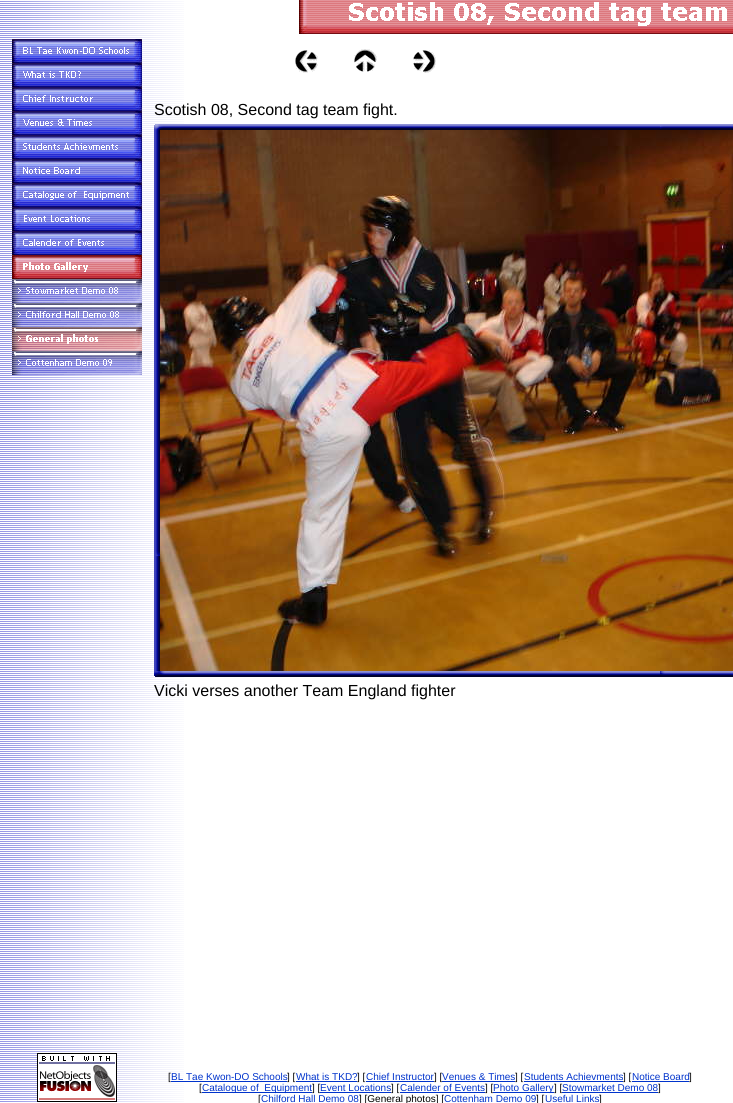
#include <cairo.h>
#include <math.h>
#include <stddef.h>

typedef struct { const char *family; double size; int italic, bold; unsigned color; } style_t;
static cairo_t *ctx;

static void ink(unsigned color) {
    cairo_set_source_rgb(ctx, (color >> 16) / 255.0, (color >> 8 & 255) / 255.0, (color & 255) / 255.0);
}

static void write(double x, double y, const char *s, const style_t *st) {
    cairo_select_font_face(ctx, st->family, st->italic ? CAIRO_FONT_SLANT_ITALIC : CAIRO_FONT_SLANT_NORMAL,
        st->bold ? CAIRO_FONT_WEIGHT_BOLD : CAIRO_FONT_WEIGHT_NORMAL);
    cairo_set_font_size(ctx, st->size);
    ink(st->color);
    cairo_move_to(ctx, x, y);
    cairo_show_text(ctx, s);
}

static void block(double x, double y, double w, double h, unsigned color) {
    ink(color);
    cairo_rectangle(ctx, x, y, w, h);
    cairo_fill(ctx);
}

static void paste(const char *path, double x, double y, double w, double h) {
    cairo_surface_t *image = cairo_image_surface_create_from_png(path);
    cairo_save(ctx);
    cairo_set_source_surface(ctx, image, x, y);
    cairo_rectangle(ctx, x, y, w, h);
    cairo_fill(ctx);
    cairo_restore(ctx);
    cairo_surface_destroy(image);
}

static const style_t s1 = {"Liberation Sans", 16, 0, 0, 0x000000};
static const style_t s2 = {"Liberation Sans", 10, 0, 0, 0x000000};
static const style_t s3 = {"Liberation Sans", 10, 0, 0, 0x0033cc};

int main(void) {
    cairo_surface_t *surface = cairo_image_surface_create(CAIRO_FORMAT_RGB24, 733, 1103);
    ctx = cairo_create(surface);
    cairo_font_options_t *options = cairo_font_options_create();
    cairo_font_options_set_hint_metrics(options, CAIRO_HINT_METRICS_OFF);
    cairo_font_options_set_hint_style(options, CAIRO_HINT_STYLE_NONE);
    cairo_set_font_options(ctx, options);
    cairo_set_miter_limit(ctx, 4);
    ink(0xffffff);
    cairo_paint(ctx);
    paste("pic1.png", 0, 1, 184, 1101);
    paste("pic2.png", 12, 39, 130, 24);
    paste("pic3.png", 12, 63, 130, 24);
    paste("pic4.png", 12, 87, 130, 24);
    paste("pic5.png", 12, 111, 130, 24);
    paste("pic6.png", 12, 135, 130, 24);
    paste("pic7.png", 12, 159, 130, 24);
    paste("pic8.png", 12, 183, 130, 24);
    paste("pic9.png", 12, 207, 130, 24);
    paste("pic10.png", 12, 231, 130, 24);
    paste("pic11.png", 12, 255, 130, 24);
    paste("pic12.png", 12, 279, 130, 24);
    paste("pic13.png", 12, 303, 130, 24);
    paste("pic14.png", 12, 327, 130, 24);
    paste("pic15.png", 12, 351, 130, 24);
    paste("pic16.png", 37, 1053, 80, 49);
    paste("pic17.png", 299, 0, 434, 34);
    paste("pic18.png", 295, 50, 23, 23);
    paste("pic19.png", 354, 49, 23, 23);
    paste("pic20.png", 413, 50, 23, 23);
    write(154, 115, "Scotish 08, Second tag team fight.", &s1);
    paste("pic21.png", 154, 124, 6, 6);
    paste("pic22.png", 160, 124, 573, 6);
    paste("pic23.png", 154, 130, 6, 541);
    paste("pic24.png", 160, 130, 573, 541);
    paste("pic25.png", 154, 671, 6, 6);
    paste("pic26.png", 160, 671, 573, 6);
    write(154, 696, "Vicki verses another Team England fighter", &s1);
    write(168, 1080, "[", &s2);
    write(171, 1080, "BL Tae Kwon-DO Schools", &s3);
    block(171, 1081, 116, 1, 0x0033cc);
    write(287, 1080, "] [", &s2);
    write(296, 1080, "What is TKD?", &s3);
    block(296, 1081, 61, 1, 0x0033cc);
    write(357, 1080, "] [", &s2);
    write(366, 1080, "Chief Instructor", &s3);
    block(366, 1081, 68, 1, 0x0033cc);
    write(434, 1080, "] [", &s2);
    write(442, 1080, "Venues & Times", &s3);
    block(442, 1081, 73, 1, 0x0033cc);
    write(515, 1080, "] [", &s2);
    write(524, 1080, "Students Achievments", &s3);
    block(524, 1081, 99, 1, 0x0033cc);
    write(623, 1080, "] [", &s2);
    write(632, 1080, "Notice Board", &s3);
    block(632, 1081, 57, 1, 0x0033cc);
    write(689, 1080, "]", &s2);
    write(199, 1091, "[", &s2);
    block(202, 1092, 110, 1, 0x0033cc);
    write(202, 1091, "Catalogue of  Equipment", &s3);
    write(312, 1091, "] [", &s2);
    write(320, 1091, "Event Locations", &s3);
    block(320, 1092, 71, 1, 0x0033cc);
    write(391, 1091, "] [", &s2);
    write(400, 1091, "Calender of Events", &s3);
    block(400, 1092, 85, 1, 0x0033cc);
    write(485, 1091, "] [", &s2);
    block(493, 1092, 61, 1, 0x0033cc);
    write(493, 1091, "Photo Gallery", &s3);
    write(554, 1091, "] [", &s2);
    write(562, 1091, "Stowmarket Demo 08", &s3);
    block(562, 1092, 96, 1, 0x0033cc);
    write(658, 1091, "]", &s2);
    write(258, 1102, "[", &s2);
    write(261, 1102, "Chilford Hall Demo 08", &s3);
    write(359, 1102, "] [General photos] [", &s2);
    write(444, 1102, "Cottenham Demo 09", &s3);
    write(536, 1102, "] [", &s2);
    write(545, 1102, "Useful Links", &s3);
    write(599, 1102, "]", &s2);
    cairo_surface_write_to_png(surface, "screenshot.png");
    cairo_font_options_destroy(options);
    cairo_destroy(ctx);
    cairo_surface_destroy(surface);
    return 0;
}
